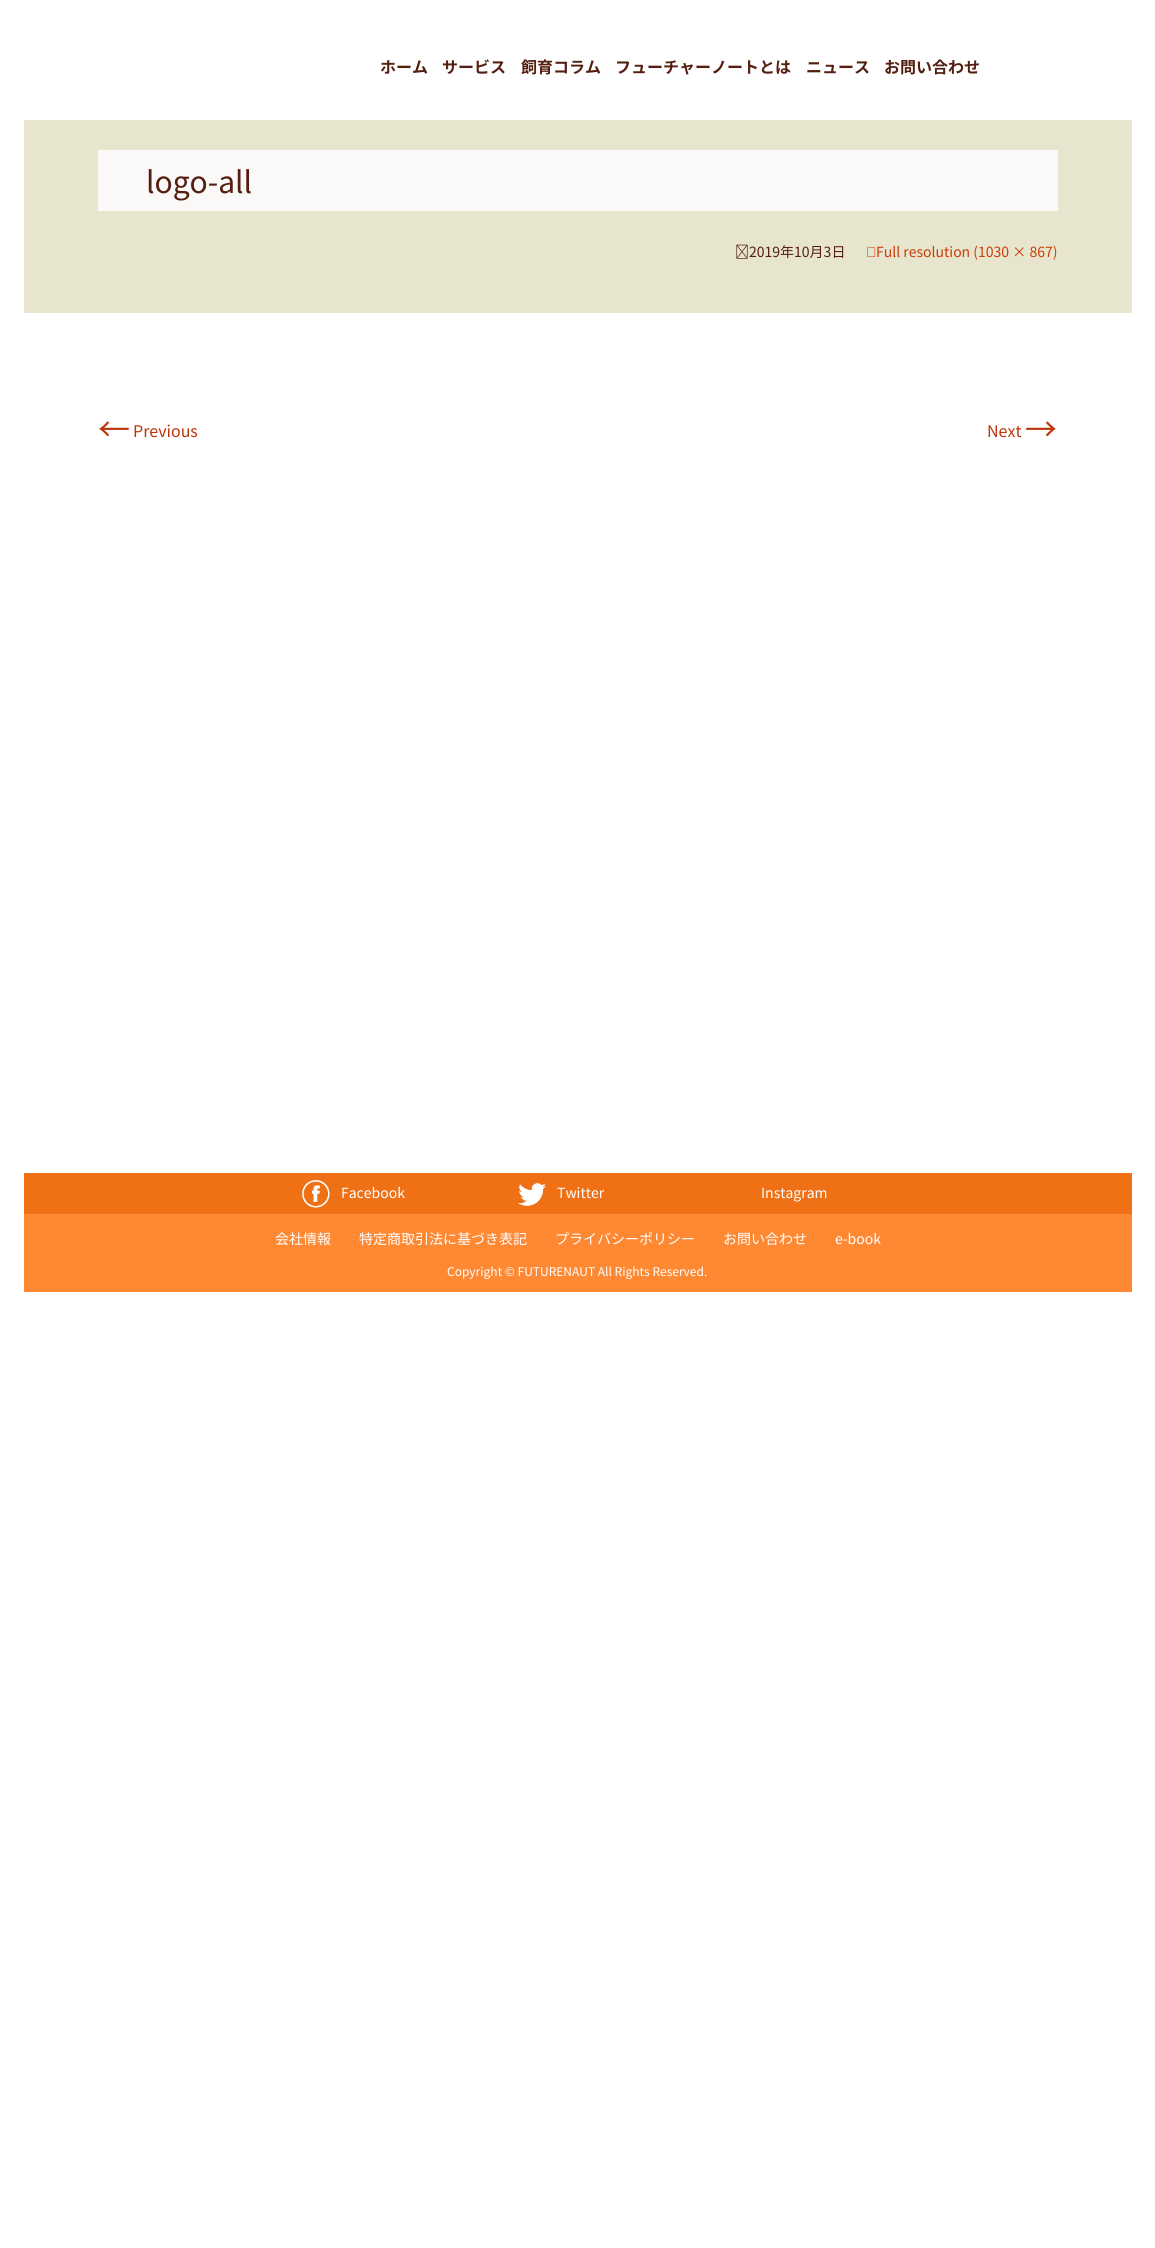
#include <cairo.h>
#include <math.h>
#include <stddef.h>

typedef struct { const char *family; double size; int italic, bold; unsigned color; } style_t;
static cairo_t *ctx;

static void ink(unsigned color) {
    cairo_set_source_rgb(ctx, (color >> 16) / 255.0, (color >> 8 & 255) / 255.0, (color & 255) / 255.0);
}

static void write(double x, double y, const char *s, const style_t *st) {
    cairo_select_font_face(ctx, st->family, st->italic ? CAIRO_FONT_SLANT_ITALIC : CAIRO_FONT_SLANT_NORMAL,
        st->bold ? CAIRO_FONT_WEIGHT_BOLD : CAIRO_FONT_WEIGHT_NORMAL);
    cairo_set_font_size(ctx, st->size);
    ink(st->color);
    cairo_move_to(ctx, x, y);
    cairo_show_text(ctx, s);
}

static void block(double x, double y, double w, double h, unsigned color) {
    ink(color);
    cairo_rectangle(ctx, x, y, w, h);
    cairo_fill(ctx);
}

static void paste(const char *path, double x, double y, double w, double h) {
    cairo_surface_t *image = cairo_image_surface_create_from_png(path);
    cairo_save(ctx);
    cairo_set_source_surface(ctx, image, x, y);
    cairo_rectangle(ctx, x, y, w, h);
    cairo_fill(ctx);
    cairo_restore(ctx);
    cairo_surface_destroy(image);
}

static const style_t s1 = {"Noto Sans JP", 16, 0, 1, 0x541e10};
static const style_t s2 = {"Noto Sans JP", 30, 0, 0, 0x541e10};
static const style_t s3 = {"Noto Sans JP", 14, 0, 0, 0x541e10};
static const style_t s4 = {"Noto Sans JP", 14, 0, 0, 0xca3c08};
static const style_t s5 = {"Noto Sans JP", 32, 0, 0, 0xbc360a};
static const style_t s6 = {"Noto Sans JP", 16, 0, 0, 0xbc360a};
static const style_t s7 = {"Noto Sans JP", 14, 0, 0, 0xffffff};
static const style_t s8 = {"Noto Sans JP", 12, 0, 0, 0xffffff};

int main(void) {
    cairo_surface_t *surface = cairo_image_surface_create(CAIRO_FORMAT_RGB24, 1155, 2248);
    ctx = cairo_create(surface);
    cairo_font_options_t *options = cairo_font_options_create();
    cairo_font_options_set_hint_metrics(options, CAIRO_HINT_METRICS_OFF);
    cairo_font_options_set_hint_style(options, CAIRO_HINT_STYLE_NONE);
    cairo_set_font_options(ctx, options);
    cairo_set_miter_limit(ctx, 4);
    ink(0xffffff);
    cairo_paint(ctx);
    write(380, 73, "ホーム", &s1);
    write(442, 73, "サービス", &s1);
    write(521, 73, "飼育コラム", &s1);
    write(615, 73, "フューチャーノートとは", &s1);
    write(806, 73, "ニュース", &s1);
    write(884, 73, "お問い合わせ", &s1);
    block(24, 120, 1108, 193, 0xe8e5ce);
    block(98, 150, 960, 61, 0xfaf9f7);
    write(146, 193, "logo-all", &s2);
    paste("pic1.png", 736, 244, 12, 15);
    write(749, 257, "2019年10月3日", &s3);
    paste("pic2.png", 867, 247, 9, 10);
    write(876, 257, "Full resolution (1030 × 867)", &s4);
    write(98, 441, "←", &s5);
    write(133, 437, "Previous", &s6);
    write(987, 437, "Next", &s6);
    write(1025, 441, "→", &s5);
    block(24, 1173, 1108, 41, 0xf07015);
    paste("pic3.png", 302, 1180, 28, 28);
    write(341, 1198, "Facebook", &s7);
    paste("pic4.png", 518, 1183, 28, 23);
    write(557, 1198, "Twitter", &s7);
    write(761, 1198, "Instagram", &s7);
    block(24, 1214, 1108, 78, 0xff8833);
    write(275, 1244, "会社情報", &s7);
    write(359, 1244, "特定商取引法に基づき表記", &s7);
    write(555, 1244, "プライバシーポリシー", &s7);
    write(723, 1244, "お問い合わせ", &s7);
    write(835, 1244, "e-book", &s7);
    write(447, 1276, "Copyright © FUTURENAUT All Rights Reserved.", &s8);
    cairo_surface_write_to_png(surface, "screenshot.png");
    cairo_font_options_destroy(options);
    cairo_destroy(ctx);
    cairo_surface_destroy(surface);
    return 0;
}
